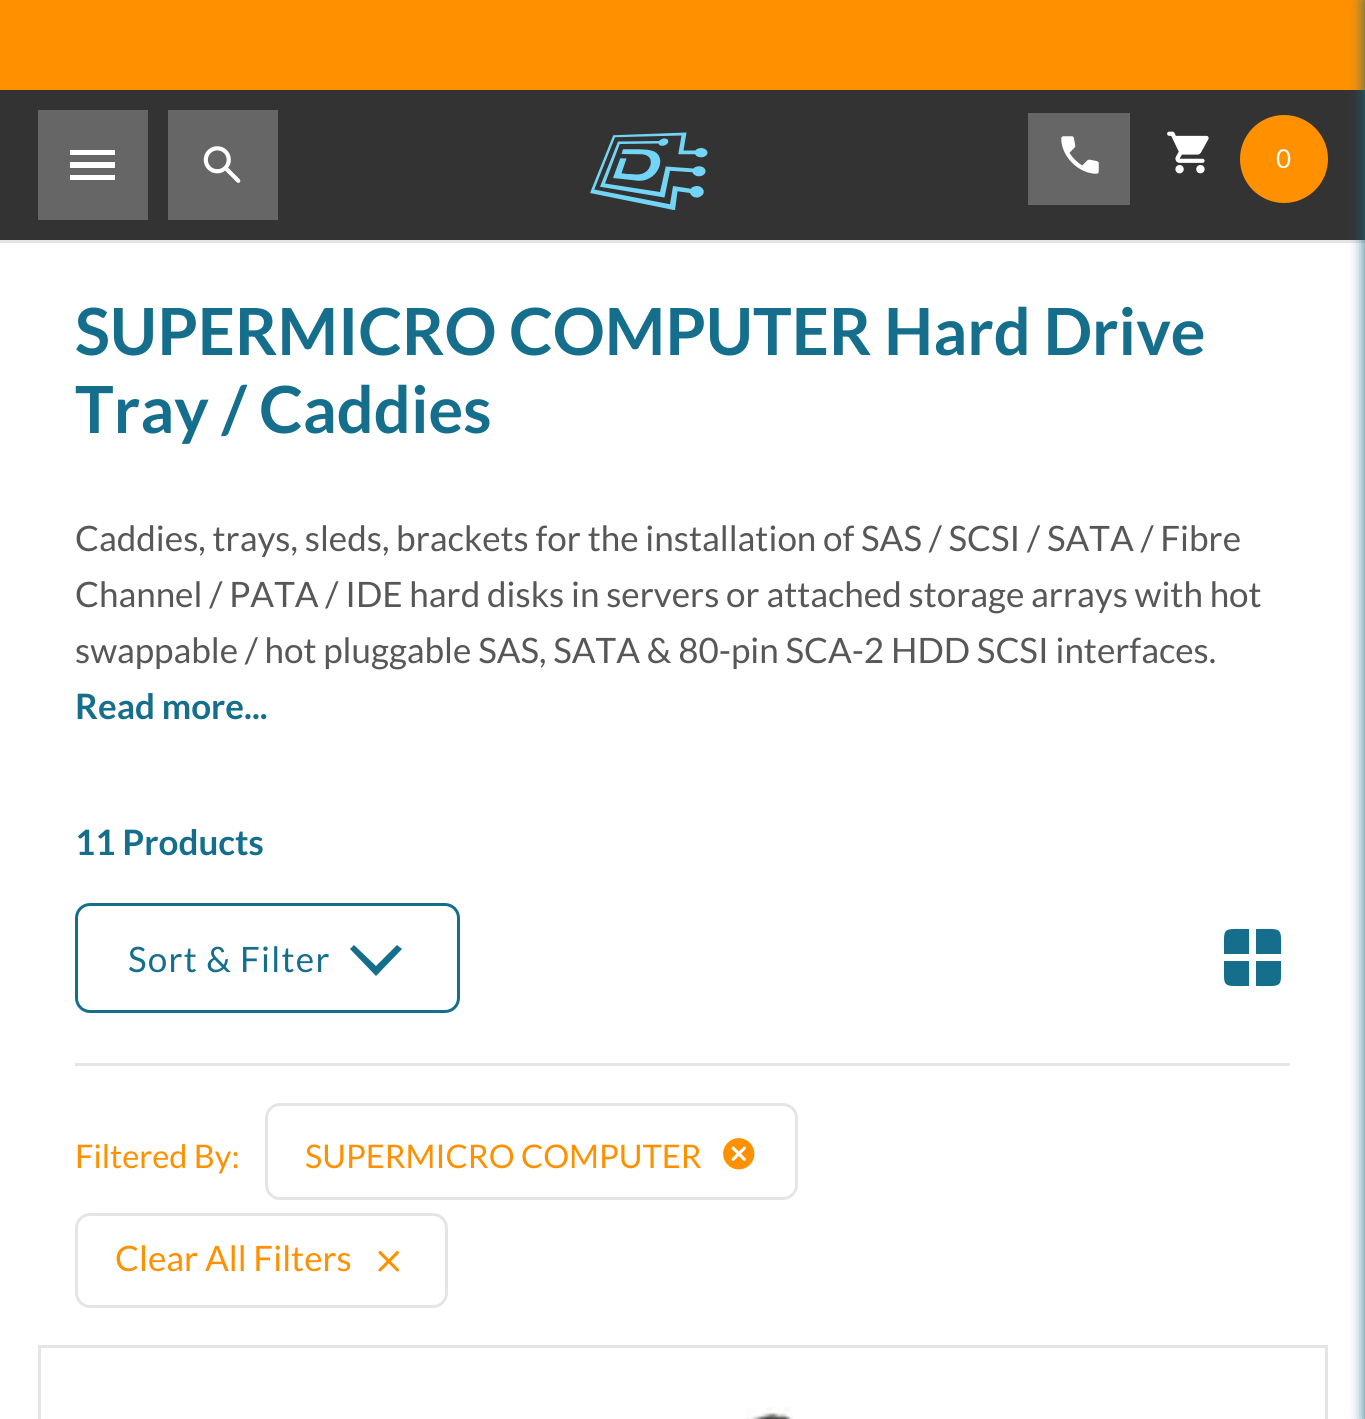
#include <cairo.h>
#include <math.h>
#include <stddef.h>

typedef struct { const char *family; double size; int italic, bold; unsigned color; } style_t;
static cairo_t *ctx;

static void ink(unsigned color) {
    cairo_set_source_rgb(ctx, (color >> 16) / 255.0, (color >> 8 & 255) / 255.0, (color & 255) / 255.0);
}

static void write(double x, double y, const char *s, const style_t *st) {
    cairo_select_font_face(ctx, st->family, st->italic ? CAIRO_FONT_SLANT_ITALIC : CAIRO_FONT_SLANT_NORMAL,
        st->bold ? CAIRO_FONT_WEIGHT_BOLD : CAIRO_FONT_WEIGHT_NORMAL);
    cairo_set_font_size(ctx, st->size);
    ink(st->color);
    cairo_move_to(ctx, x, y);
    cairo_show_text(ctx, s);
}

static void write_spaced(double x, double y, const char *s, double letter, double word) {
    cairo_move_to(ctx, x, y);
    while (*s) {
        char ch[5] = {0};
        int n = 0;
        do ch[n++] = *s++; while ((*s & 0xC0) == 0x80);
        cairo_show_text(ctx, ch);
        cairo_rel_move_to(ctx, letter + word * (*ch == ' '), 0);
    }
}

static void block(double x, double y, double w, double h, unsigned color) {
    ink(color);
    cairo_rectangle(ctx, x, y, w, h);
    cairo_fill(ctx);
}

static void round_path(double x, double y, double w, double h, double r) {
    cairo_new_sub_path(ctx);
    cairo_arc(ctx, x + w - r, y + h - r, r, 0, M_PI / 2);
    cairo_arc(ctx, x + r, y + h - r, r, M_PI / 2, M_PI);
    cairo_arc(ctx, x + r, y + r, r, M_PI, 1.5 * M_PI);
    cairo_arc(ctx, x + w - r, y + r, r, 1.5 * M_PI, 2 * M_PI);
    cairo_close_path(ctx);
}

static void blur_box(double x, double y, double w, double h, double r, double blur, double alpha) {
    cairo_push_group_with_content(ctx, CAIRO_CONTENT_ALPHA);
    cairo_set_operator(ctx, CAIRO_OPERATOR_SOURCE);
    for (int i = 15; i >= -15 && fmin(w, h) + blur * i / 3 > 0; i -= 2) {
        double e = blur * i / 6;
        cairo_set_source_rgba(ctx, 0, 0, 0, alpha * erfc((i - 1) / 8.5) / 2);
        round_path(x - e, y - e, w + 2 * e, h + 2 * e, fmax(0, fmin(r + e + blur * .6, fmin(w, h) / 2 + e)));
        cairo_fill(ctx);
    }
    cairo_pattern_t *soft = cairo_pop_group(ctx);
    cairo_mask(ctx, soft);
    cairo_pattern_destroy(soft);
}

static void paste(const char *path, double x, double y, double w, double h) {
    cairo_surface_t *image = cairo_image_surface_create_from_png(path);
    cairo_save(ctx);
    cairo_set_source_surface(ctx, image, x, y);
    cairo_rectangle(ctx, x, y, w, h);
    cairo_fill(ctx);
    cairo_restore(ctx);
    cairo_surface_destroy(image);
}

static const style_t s1 = {"Lato", 26, 0, 0, 0xffffff};
static const style_t s2 = {"Lato", 65, 0, 1, 0x156e8c};
static const style_t s3 = {"Lato", 35, 0, 0, 0x575757};
static const style_t s4 = {"Lato", 35, 0, 1, 0x156e8c};
static const style_t s5 = {"Lato", 32.5, 0, 0, 0xff9100};
static const style_t s6 = {"Lato", 35, 0, 0, 0xff9100};

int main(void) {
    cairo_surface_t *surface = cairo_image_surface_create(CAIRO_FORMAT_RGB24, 1365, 1419);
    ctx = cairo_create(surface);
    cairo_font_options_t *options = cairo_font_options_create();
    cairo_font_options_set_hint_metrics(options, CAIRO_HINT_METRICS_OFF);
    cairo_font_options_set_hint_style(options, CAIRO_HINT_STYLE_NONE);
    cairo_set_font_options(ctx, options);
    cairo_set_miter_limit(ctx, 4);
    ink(0xffffff);
    cairo_paint(ctx);
    block(0, 0, 1365, 90, 0xff9100);
    block(0, 90, 1365, 150, 0x333333);
    block(38, 110, 110, 110, 0x666666);
    ink(0xffffff);
    cairo_new_path(ctx);
    cairo_move_to(ctx, 70, 180);
    cairo_line_to(ctx, 70, 175);
    cairo_line_to(ctx, 115, 175);
    cairo_line_to(ctx, 115, 180);
    cairo_close_path(ctx);
    cairo_move_to(ctx, 70, 168);
    cairo_line_to(ctx, 70, 162);
    cairo_line_to(ctx, 115, 162);
    cairo_line_to(ctx, 115, 168);
    cairo_close_path(ctx);
    cairo_move_to(ctx, 70, 155);
    cairo_line_to(ctx, 70, 150);
    cairo_line_to(ctx, 115, 150);
    cairo_line_to(ctx, 115, 155);
    cairo_close_path(ctx);
    cairo_fill(ctx);
    block(168, 110, 110, 110, 0x666666);
    paste("pic1.png", 203, 146, 38, 37);
    paste("pic2.png", 590, 132, 118, 78);
    block(1028, 113, 102, 92, 0x666666);
    paste("pic3.png", 1061, 136, 38, 38);
    paste("pic4.png", 1167, 131, 42, 43);
    ink(0xff9100);
    cairo_arc(ctx, 1284, 159, 44, 0, 2 * M_PI);
    cairo_fill(ctx);
    write(1276, 168, "0", &s1);
    block(0, 240, 1365, 3, 0xe5e5e5);
    write(75, 355, "SUPERMICRO COMPUTER Hard Drive", &s2);
    write(75, 433, "Tray / Caddies", &s2);
    write(75, 551, "Caddies, trays, sleds, brackets for the installation of SAS / SCSI / SATA / Fibre", &s3);
    write(75, 607, "Channel / PATA / IDE hard disks in servers or attached storage arrays with hot", &s3);
    write(75, 663, "swappable / hot pluggable SAS, SATA & 80-pin SCA-2 HDD SCSI interfaces.", &s3);
    write(75, 719, "Read more...", &s4);
    block(75, 1063, 1215, 3, 0xe5e5e5);
    write(75, 855, "11 Products", &s4);
    round_path(76.5, 904.5, 382, 107, 13.5);
    cairo_set_line_width(ctx, 3);
    cairo_stroke(ctx);
    cairo_select_font_face(ctx, "Lato", CAIRO_FONT_SLANT_NORMAL, CAIRO_FONT_WEIGHT_NORMAL);
    write_spaced(128, 972, "Sort & Filter", 1.25, 0);
    cairo_new_path(ctx);
    cairo_move_to(ctx, 402, 949);
    cairo_line_to(ctx, 376, 976);
    cairo_line_to(ctx, 350, 949);
    cairo_line_to(ctx, 354, 945);
    cairo_line_to(ctx, 376, 966);
    cairo_line_to(ctx, 397, 945);
    cairo_close_path(ctx);
    cairo_fill(ctx);
    cairo_new_path(ctx);
    cairo_move_to(ctx, 1256, 961);
    cairo_line_to(ctx, 1281, 961);
    cairo_curve_to(ctx, 1281, 989, 1284, 986, 1256, 986);
    cairo_close_path(ctx);
    cairo_move_to(ctx, 1256, 954);
    cairo_line_to(ctx, 1256, 929);
    cairo_curve_to(ctx, 1284, 929, 1281, 926, 1281, 954);
    cairo_close_path(ctx);
    cairo_move_to(ctx, 1249, 954);
    cairo_line_to(ctx, 1224, 954);
    cairo_curve_to(ctx, 1224, 926, 1221, 929, 1249, 929);
    cairo_close_path(ctx);
    cairo_move_to(ctx, 1249, 961);
    cairo_line_to(ctx, 1249, 986);
    cairo_curve_to(ctx, 1221, 986, 1224, 989, 1224, 961);
    cairo_close_path(ctx);
    cairo_fill(ctx);
    write(75, 1168, "Filtered By:", &s5);
    round_path(266.5, 1104.5, 530, 94, 13.5);
    ink(0xe5e5e5);
    cairo_stroke(ctx);
    write(305, 1168, "SUPERMICRO COMPUTER", &s5);
    paste("pic5.png", 723, 1138, 32, 32);
    round_path(76.5, 1214.5, 370, 92, 13.5);
    ink(0xe5e5e5);
    cairo_stroke(ctx);
    write(115, 1271, "Clear All Filters", &s6);
    paste("pic6.png", 378, 1251, 21, 21);
    cairo_rectangle(ctx, 39.5, 1346.5, 1287, 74);
    ink(0xe5e5e5);
    cairo_stroke(ctx);
    paste("pic7.png", 746, 1407, 47, 12);
    ink(0x156e8c);
    blur_box(1365, 0, 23, 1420, 0, 7.5, 1);
    cairo_surface_write_to_png(surface, "screenshot.png");
    cairo_font_options_destroy(options);
    cairo_destroy(ctx);
    cairo_surface_destroy(surface);
    return 0;
}
